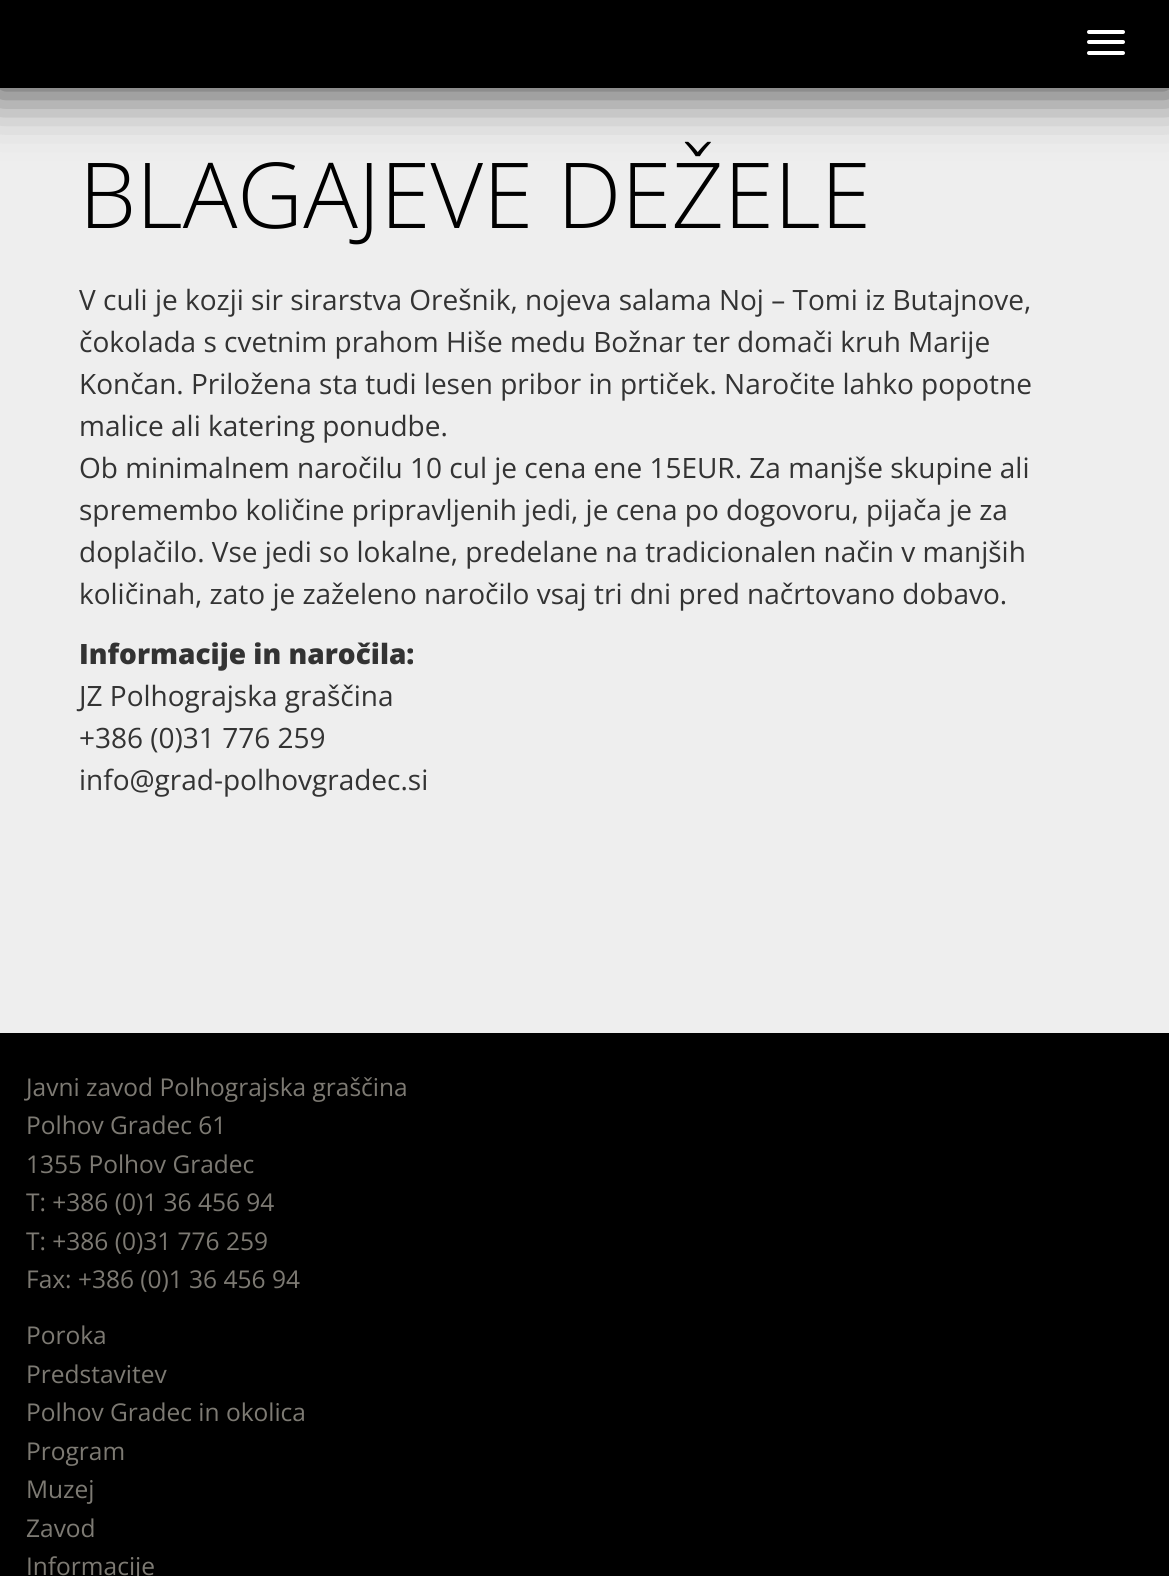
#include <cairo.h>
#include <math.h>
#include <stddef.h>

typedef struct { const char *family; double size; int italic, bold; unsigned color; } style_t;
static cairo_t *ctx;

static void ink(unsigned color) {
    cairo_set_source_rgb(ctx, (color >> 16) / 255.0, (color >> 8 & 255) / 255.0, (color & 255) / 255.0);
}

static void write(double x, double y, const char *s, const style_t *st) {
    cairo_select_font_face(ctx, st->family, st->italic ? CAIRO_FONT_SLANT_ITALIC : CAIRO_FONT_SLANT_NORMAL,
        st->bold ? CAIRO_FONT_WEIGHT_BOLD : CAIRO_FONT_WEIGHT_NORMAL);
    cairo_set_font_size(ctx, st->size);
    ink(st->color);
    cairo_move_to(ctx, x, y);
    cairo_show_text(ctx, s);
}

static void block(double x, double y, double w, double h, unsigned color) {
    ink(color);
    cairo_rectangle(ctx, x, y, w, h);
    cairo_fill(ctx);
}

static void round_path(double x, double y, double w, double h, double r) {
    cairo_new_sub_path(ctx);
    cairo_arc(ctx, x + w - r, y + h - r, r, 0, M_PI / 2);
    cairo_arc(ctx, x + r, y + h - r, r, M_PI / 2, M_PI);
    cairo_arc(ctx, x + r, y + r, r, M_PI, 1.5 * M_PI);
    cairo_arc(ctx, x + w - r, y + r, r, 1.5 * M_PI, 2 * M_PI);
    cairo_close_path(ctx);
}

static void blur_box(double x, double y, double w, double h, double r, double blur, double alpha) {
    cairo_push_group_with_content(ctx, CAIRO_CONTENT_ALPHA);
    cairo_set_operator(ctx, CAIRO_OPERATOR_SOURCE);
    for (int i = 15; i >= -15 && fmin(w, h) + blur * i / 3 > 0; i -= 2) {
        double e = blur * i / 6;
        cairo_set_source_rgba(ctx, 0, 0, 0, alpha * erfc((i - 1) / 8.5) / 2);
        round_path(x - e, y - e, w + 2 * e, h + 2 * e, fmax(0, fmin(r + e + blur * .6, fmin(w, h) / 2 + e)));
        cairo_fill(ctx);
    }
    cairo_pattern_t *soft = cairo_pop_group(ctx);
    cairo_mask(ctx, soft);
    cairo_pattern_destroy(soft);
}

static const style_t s1 = {"Open Sans Light", 91, 0, 0, 0x000000};
static const style_t s2 = {"Open Sans", 28, 0, 0, 0x333333};
static const style_t s3 = {"Open Sans ExtraBold", 28, 0, 0, 0x333333};
static const style_t s4 = {"Open Sans", 24.5, 0, 0, 0x7d7a73};

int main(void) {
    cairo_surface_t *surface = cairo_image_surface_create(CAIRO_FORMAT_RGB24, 1169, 1576);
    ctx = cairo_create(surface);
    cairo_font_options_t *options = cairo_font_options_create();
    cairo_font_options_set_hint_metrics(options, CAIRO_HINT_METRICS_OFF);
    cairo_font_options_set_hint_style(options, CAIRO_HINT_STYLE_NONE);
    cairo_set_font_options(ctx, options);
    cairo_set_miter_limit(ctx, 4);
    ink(0xeeeeee);
    cairo_paint(ctx);
    ink(0x222222);
    blur_box(-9, -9, 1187, 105, 0, 26, 0.75);
    block(0, 0, 1169, 88, 0x000000);
    ink(0xffffff);
    round_path(1087, 30, 38, 4, 2);
    cairo_fill(ctx);
    round_path(1087, 40, 38, 4, 2);
    cairo_fill(ctx);
    round_path(1087, 51, 38, 4, 2);
    cairo_fill(ctx);
    write(79, 228, "BLAGAJEVE DEŽELE", &s1);
    write(79, 310, "V culi je kozji sir sirarstva Orešnik, nojeva salama Noj – Tomi iz Butajnove,", &s2);
    write(79, 352, "čokolada s cvetnim prahom Hiše medu Božnar ter domači kruh Marije", &s2);
    write(79, 394, "Končan. Priložena sta tudi lesen pribor in prtiček. Naročite lahko popotne", &s2);
    write(79, 436, "malice ali katering ponudbe.", &s2);
    write(79, 478, "Ob minimalnem naročilu 10 cul je cena ene 15EUR. Za manjše skupine ali", &s2);
    write(79, 520, "spremembo količine pripravljenih jedi, je cena po dogovoru, pijača je za", &s2);
    write(79, 562, "doplačilo. Vse jedi so lokalne, predelane na tradicionalen način v manjših", &s2);
    write(79, 604, "količinah, zato je zaželeno naročilo vsaj tri dni pred načrtovano dobavo.", &s2);
    write(79, 664, "Informacije in naročila:", &s3);
    write(79, 706, "JZ Polhograjska graščina", &s2);
    write(79, 748, "+386 (0)31 776 259", &s2);
    write(79, 790, "info@grad-polhovgradec.si", &s2);
    block(0, 1033, 1169, 543, 0x000000);
    write(26, 1096, "Javni zavod Polhograjska graščina", &s4);
    write(26, 1134, "Polhov Gradec 61", &s4);
    write(26, 1173, "1355 Polhov Gradec", &s4);
    write(26, 1211, "T: +386 (0)1 36 456 94", &s4);
    write(26, 1250, "T: +386 (0)31 776 259", &s4);
    write(26, 1288, "Fax: +386 (0)1 36 456 94", &s4);
    write(26, 1344, "Poroka", &s4);
    write(26, 1383, "Predstavitev", &s4);
    write(26, 1421, "Polhov Gradec in okolica", &s4);
    write(26, 1460, "Program", &s4);
    write(26, 1498, "Muzej", &s4);
    write(26, 1537, "Zavod", &s4);
    write(26, 1575, "Informacije", &s4);
    cairo_surface_write_to_png(surface, "screenshot.png");
    cairo_font_options_destroy(options);
    cairo_destroy(ctx);
    cairo_surface_destroy(surface);
    return 0;
}
